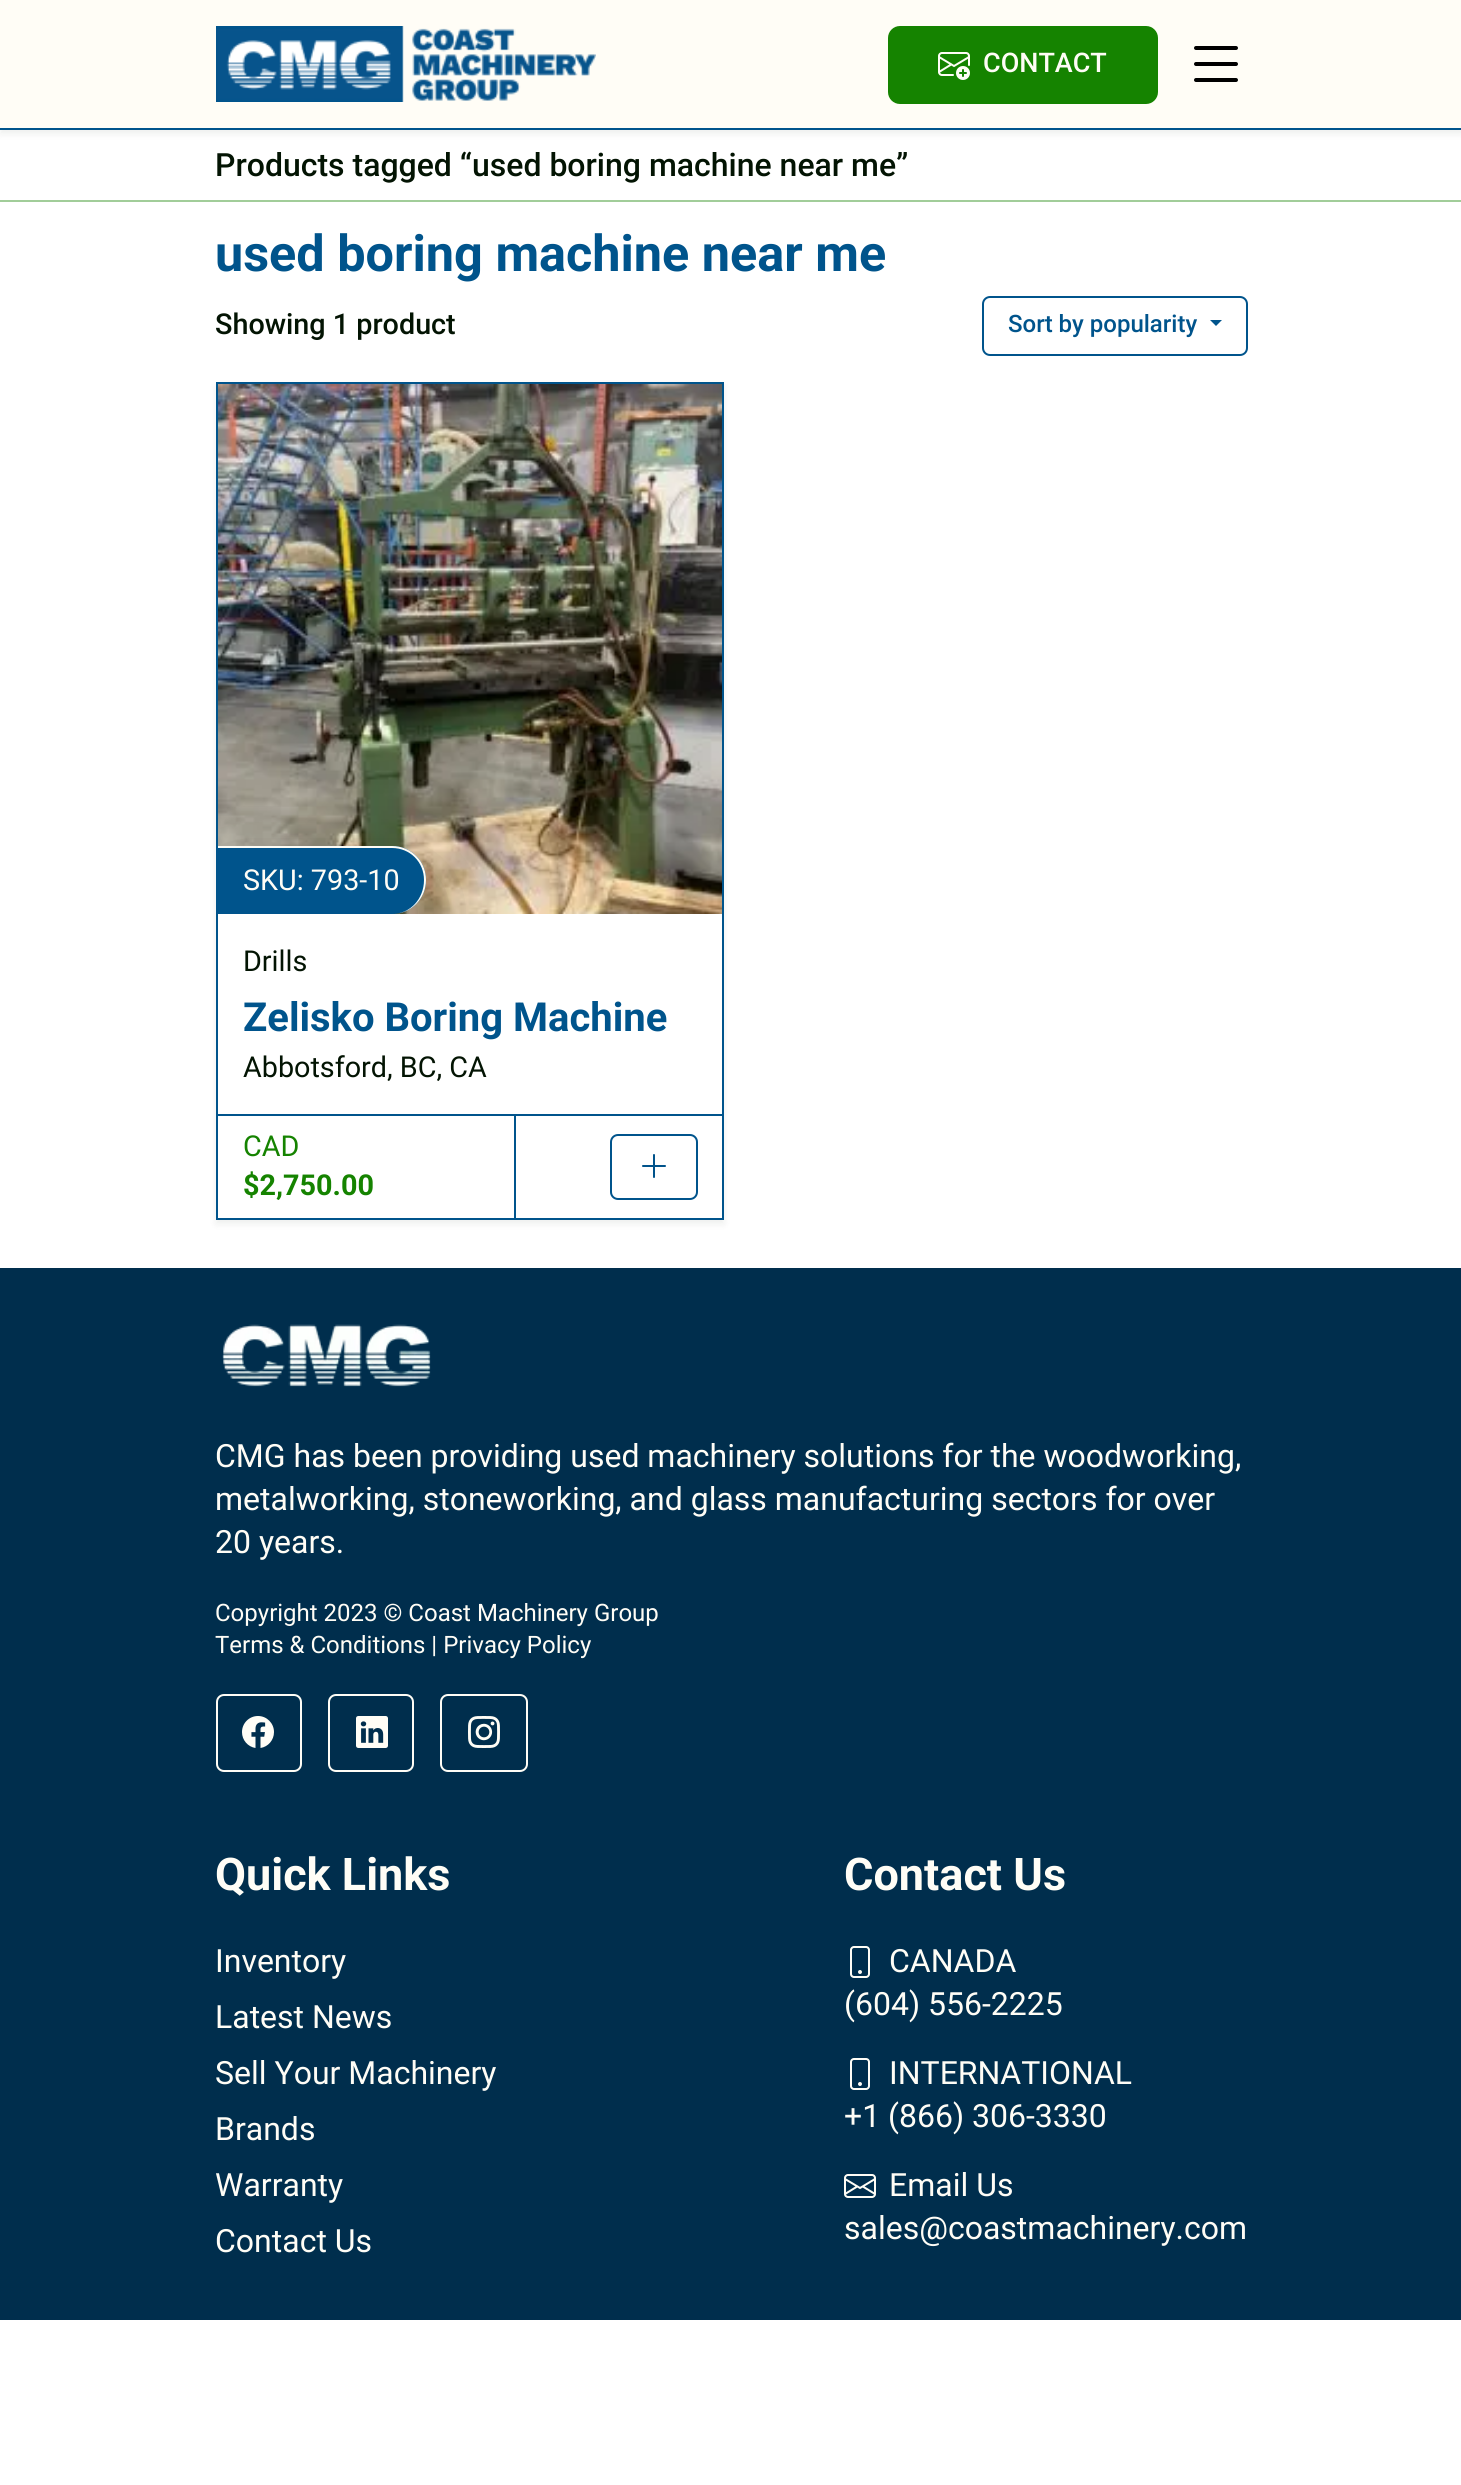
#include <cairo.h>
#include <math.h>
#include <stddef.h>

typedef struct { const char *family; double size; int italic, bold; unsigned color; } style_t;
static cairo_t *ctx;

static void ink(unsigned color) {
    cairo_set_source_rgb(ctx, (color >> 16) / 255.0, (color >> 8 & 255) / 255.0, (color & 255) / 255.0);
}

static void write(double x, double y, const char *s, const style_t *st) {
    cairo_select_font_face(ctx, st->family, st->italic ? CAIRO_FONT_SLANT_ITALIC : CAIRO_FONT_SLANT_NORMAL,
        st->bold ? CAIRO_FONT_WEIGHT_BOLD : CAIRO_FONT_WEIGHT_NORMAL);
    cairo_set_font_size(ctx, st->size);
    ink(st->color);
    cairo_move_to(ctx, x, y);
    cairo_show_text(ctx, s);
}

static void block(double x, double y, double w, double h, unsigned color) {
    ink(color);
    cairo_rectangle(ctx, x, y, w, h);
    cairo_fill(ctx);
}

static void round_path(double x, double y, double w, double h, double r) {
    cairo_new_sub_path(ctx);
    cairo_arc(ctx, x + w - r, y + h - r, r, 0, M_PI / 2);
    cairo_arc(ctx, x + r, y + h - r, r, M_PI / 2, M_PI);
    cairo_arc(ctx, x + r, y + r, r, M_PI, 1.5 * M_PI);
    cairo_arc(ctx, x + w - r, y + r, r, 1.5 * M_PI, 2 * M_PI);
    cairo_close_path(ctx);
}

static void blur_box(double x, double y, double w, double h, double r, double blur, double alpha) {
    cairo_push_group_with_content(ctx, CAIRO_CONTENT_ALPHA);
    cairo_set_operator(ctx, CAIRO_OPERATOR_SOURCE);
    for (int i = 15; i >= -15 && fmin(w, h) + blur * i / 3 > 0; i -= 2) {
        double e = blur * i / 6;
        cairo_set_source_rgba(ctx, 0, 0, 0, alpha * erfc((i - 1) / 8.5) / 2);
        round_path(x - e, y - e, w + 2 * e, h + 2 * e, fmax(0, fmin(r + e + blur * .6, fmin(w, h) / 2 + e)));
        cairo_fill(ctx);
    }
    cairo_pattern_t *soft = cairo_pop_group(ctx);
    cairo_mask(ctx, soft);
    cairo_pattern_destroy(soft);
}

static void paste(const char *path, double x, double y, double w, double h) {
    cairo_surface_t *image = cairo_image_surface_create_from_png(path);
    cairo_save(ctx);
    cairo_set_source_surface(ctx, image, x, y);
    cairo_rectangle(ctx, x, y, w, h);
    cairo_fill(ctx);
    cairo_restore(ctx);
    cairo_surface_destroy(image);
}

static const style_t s1 = {"Roboto Medium", 27, 0, 0, 0xfffdf6};
static const style_t s2 = {"Roboto Medium", 32, 0, 0, 0x031403};
static const style_t s3 = {"Roboto", 50.4, 0, 1, 0x00548c};
static const style_t s4 = {"Roboto Medium", 28.75, 0, 0, 0x031403};
static const style_t s5 = {"Roboto Medium", 24, 0, 0, 0x00548c};
static const style_t s6 = {"Roboto", 28.75, 0, 0, 0xfffdf6};
static const style_t s7 = {"Roboto", 28.75, 0, 0, 0x031403};
static const style_t s8 = {"Roboto", 40, 0, 1, 0x00548c};
static const style_t s9 = {"Roboto", 28.75, 0, 0, 0x158300};
static const style_t s10 = {"Roboto", 28.75, 0, 1, 0x158300};
static const style_t s11 = {"Roboto", 32, 0, 0, 0xfffdf6};
static const style_t s12 = {"Roboto", 24, 0, 0, 0xfffdf6};
static const style_t s13 = {"Roboto", 45, 0, 1, 0xfffdf6};

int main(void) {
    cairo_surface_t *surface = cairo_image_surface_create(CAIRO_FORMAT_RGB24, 1461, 2485);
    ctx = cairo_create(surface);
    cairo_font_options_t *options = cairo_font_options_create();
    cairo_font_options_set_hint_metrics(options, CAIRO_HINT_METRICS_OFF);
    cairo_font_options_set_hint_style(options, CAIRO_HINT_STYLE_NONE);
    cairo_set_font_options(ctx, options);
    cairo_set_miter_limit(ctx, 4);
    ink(0xffffff);
    cairo_paint(ctx);
    ink(0x031403);
    blur_box(0, 4, 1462, 130, 0, 4, 0.07);
    block(0, 128, 1461, 2, 0x00548c);
    block(0, 0, 1461, 128, 0xfffdf6);
    paste("pic1.png", 216, 26, 380, 76);
    ink(0x158300);
    round_path(889, 27, 268, 76, 11);
    cairo_fill_preserve(ctx);
    cairo_stroke(ctx);
    paste("pic2.png", 938, 52, 32, 28);
    write(983, 72, "CONTACT", &s1);
    paste("pic3.png", 1194, 46, 44, 36);
    block(0, 200, 1461, 2, 0xa1cd99);
    write(215, 176, "Products tagged “used boring machine near me”", &s2);
    write(215, 271, "used boring machine near me", &s3);
    write(215, 334, "Showing 1 product", &s4);
    round_path(983, 297, 264, 58, 7);
    ink(0x00548c);
    cairo_stroke(ctx);
    write(1008, 332, "Sort by popularity", &s5);
    cairo_new_path(ctx);
    cairo_move_to(ctx, 1210, 320);
    cairo_line_to(ctx, 1222, 320);
    cairo_line_to(ctx, 1216, 326);
    cairo_close_path(ctx);
    cairo_fill(ctx);
    cairo_save(ctx);
    cairo_set_fill_rule(ctx, CAIRO_FILL_RULE_EVEN_ODD);
    cairo_new_path(ctx);
    cairo_move_to(ctx, 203, 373);
    cairo_line_to(ctx, 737, 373);
    cairo_line_to(ctx, 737, 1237);
    cairo_line_to(ctx, 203, 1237);
    cairo_close_path(ctx);
    cairo_move_to(ctx, 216, 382);
    cairo_line_to(ctx, 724, 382);
    cairo_line_to(ctx, 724, 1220);
    cairo_line_to(ctx, 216, 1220);
    cairo_close_path(ctx);
    cairo_clip(ctx);
    ink(0x031403);
    blur_box(216, 386, 508, 838, 0, 4, 0.07);
    cairo_restore(ctx);
    cairo_rectangle(ctx, 217, 383, 506, 836);
    cairo_stroke(ctx);
    paste("pic4.png", 218, 384, 504, 530);
    cairo_save(ctx);
    cairo_rectangle(ctx, 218, 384, 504, 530);
    cairo_clip(ctx);
    ink(0x031403);
    blur_box(218, 878, 208, 68, 34, 48, 0.18);
    cairo_restore(ctx);
    cairo_new_path(ctx);
    cairo_move_to(ctx, 218, 846);
    cairo_line_to(ctx, 392, 846);
    cairo_curve_to(ctx, 411, 846, 426, 861, 426, 880);
    cairo_curve_to(ctx, 426, 899, 411, 914, 392, 914);
    cairo_line_to(ctx, 218, 914);
    cairo_close_path(ctx);
    cairo_fill(ctx);
    ink(0xfffdf6);
    cairo_set_fill_rule(ctx, CAIRO_FILL_RULE_EVEN_ODD);
    cairo_new_path(ctx);
    cairo_move_to(ctx, 218, 846);
    cairo_line_to(ctx, 392, 846);
    cairo_curve_to(ctx, 411, 846, 426, 861, 426, 880);
    cairo_curve_to(ctx, 426, 899, 411, 914, 392, 914);
    cairo_line_to(ctx, 218, 914);
    cairo_close_path(ctx);
    cairo_move_to(ctx, 218, 848);
    cairo_line_to(ctx, 392, 848);
    cairo_curve_to(ctx, 410, 848, 424, 862, 424, 880);
    cairo_curve_to(ctx, 424, 899, 410, 914, 392, 914);
    cairo_line_to(ctx, 218, 914);
    cairo_close_path(ctx);
    cairo_fill(ctx);
    write(243, 890, "SKU: 793-10", &s6);
    write(243, 971, "Drills", &s7);
    write(243, 1031, "Zelisko Boring Machine", &s8);
    write(243, 1077, "Abbotsford, BC, CA", &s7);
    block(218, 1114, 504, 2, 0x00548c);
    block(514, 1116, 2, 102, 0x00548c);
    write(243, 1156, "CAD", &s9);
    write(243, 1195, "$2,750.00", &s10);
    round_path(611, 1135, 86, 64, 7);
    ink(0x00548c);
    cairo_stroke(ctx);
    paste("pic5.png", 642, 1154, 24, 24);
    block(0, 1268, 1461, 1052, 0x002e4d);
    paste("pic6.png", 222, 1324, 209, 63);
    write(215, 1467, "CMG has been providing used machinery solutions for the woodworking,", &s11);
    write(215, 1510, "metalworking, stoneworking, and glass manufacturing sectors for over", &s11);
    write(215, 1553, "20 years.", &s11);
    write(215, 1621, "Copyright 2023 © Coast Machinery Group", &s12);
    write(215, 1653, "Terms & Conditions | Privacy Policy", &s12);
    round_path(217, 1695, 84, 76, 7);
    cairo_stroke(ctx);
    paste("pic7.png", 242, 1716, 32, 32);
    round_path(329, 1695, 84, 76, 7);
    cairo_stroke(ctx);
    paste("pic8.png", 356, 1716, 32, 32);
    round_path(441, 1695, 86, 76, 7);
    cairo_stroke(ctx);
    paste("pic9.png", 468, 1716, 32, 32);
    write(215, 1890, "Quick Links", &s13);
    write(215, 1972, "Inventory", &s11);
    write(215, 2028, "Latest News", &s11);
    write(215, 2084, "Sell Your Machinery", &s11);
    write(215, 2140, "Brands", &s11);
    write(215, 2196, "Warranty", &s11);
    write(215, 2252, "Contact Us", &s11);
    write(844, 1890, "Contact Us", &s13);
    paste("pic10.png", 850, 1946, 20, 32);
    write(889, 1972, "CANADA", &s11);
    write(844, 2015, "(604) 556-2225", &s11);
    paste("pic10.png", 850, 2058, 20, 32);
    write(889, 2084, "INTERNATIONAL", &s11);
    write(844, 2127, "+1 (866) 306-3330", &s11);
    paste("pic11.png", 844, 2174, 32, 24);
    write(889, 2196, "Email Us", &s11);
    write(844, 2239, "sales@coastmachinery.com", &s11);
    cairo_surface_write_to_png(surface, "screenshot.png");
    cairo_font_options_destroy(options);
    cairo_destroy(ctx);
    cairo_surface_destroy(surface);
    return 0;
}
